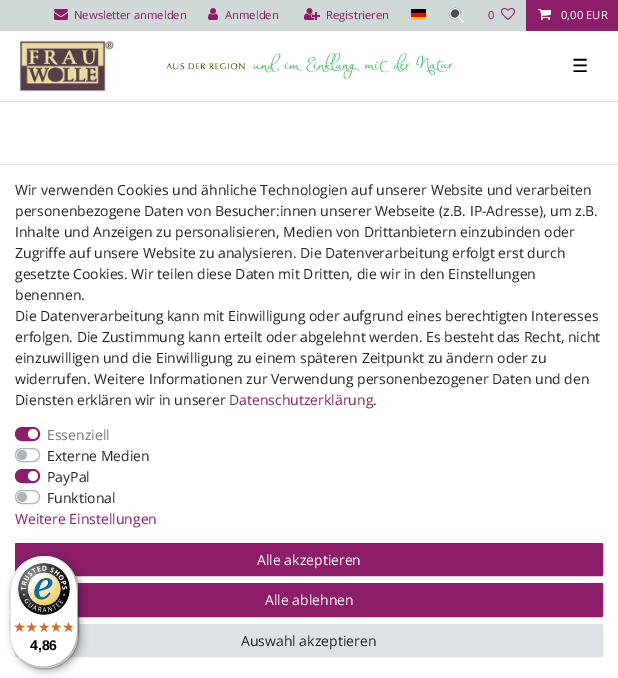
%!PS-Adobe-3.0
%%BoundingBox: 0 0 618 678
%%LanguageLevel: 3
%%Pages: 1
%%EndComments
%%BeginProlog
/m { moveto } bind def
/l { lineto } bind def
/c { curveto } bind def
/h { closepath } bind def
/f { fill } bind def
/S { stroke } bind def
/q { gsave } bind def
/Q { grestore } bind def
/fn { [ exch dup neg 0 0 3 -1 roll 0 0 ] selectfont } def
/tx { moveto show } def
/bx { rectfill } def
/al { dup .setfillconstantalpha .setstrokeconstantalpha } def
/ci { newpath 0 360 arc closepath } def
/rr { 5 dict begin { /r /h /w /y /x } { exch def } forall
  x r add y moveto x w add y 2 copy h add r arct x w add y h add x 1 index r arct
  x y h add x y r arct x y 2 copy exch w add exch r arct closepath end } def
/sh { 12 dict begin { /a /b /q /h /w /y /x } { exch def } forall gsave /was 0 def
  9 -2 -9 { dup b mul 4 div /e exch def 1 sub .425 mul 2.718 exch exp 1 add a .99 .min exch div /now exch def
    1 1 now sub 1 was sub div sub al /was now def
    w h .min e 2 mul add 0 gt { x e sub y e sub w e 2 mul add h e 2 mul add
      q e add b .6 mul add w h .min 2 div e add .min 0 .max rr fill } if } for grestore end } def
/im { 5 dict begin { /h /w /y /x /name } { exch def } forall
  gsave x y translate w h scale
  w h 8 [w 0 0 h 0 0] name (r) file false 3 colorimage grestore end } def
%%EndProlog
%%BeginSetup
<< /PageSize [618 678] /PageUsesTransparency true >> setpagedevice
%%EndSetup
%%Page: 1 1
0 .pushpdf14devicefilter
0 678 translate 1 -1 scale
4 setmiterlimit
1 setgray
0 0 618 678 bx
0.82 0.847 0.847 setrgbcolor
0 0 526 31 bx
(image0.raw) 54 9 14 11 im
/OpenSans-Regular 11.25 fn
0.545 0.114 0.412 setrgbcolor
(Newsletter anmelden) 74 19 tx
(image1.raw) 208 8 10 12 im
(Anmelden) 225 19 tx
(image2.raw) 304 8 16 12 im
(Registrieren) 326 19 tx
1 0.8 0 setrgbcolor
411 17 15 3 bx
0 setgray
411 9 15 4 bx
1 0 0 setrgbcolor
411 13 15 4 bx
1 setgray
463 22.5 m 461.5 21 453 12.5 453 12 c 453.5 11.5 l 464 22 l 464 22.5 463.5 22.5 463 22.5 c h f
0.286 0.314 0.341 setrgbcolor
451 17.5 m 446 12.5 454 4.5 459 9.5 c 464 14.5 456 22.5 451 17.5 c h f
1 setgray
451.5 17 m 447 12.5 454 5.5 458.5 10 c 463 14.5 456 21.5 451.5 17 c h S
0.545 0.114 0.412 setrgbcolor
(0) 488 19 tx
(image3.raw) 501 8 14 12 im
526 0 92 31 bx
(image4.raw) 538 9 13 11 im
1 setgray
(0,00 EUR) 561 19 tx
0.871 0.886 0.902 setrgbcolor
0 101 618 1 bx
(image5.raw) 165 51 289 29 im
(image6.raw) 18 38 98 54 im
/DejaVuSans-Regular 18 fn
0 setgray
(☰) 572 72 tx
0.871 0.886 0.902 setrgbcolor
0 164 618 1 bx
/OpenSans-Regular 14 fn
0.129 0.145 0.161 setrgbcolor
(Wir verwenden Cookies und ähnliche Technologien auf unserer Website und verarbeiten) 15 195 tx
(personenbezogene Daten von Besucher:innen unserer Webseite \(z.B. IP-Adresse\), um z.B.) 15 216 tx
(Inhalte und Anzeigen zu personalisieren, Medien von Drittanbietern einzubinden oder) 15 237 tx
(Zugriffe auf unsere Website zu analysieren. Die Datenverarbeitung erfolgt erst durch) 15 258 tx
(gesetzte Cookies. Wir teilen diese Daten mit Dritten, die wir in den Einstellungen) 15 279 tx
(benennen.) 15 300 tx
(Die Datenverarbeitung kann mit Einwilligung oder aufgrund eines berechtigten Interesses) 15 321 tx
(erfolgen. Die Zustimmung kann erteilt oder abgelehnt werden. Es besteht das Recht, nicht) 15 342 tx
(einzuwilligen und die Einwilligung zu einem späteren Zeitpunkt zu ändern oder zu) 15 363 tx
(widerrufen. Weitere Informationen zur Verwendung personenbezogener Daten und den) 15 384 tx
(Diensten erklären wir in unserer) 15 405 tx
0.545 0.114 0.412 setrgbcolor
(Datenschutzerklärung) 229 405 tx
0.129 0.145 0.161 setrgbcolor
(.) 373 405 tx
0.545 0.114 0.412 setrgbcolor
15.5 427.5 24 13 6.5 rr q f Q
S
1 setgray
33 434 5 ci f
0.463 setgray
(Essenziell) 47 440 tx
0.678 0.71 0.741 setrgbcolor
15.5 448.5 24 13 6.5 rr S
22 455 5 ci f
0.129 0.145 0.161 setrgbcolor
(Externe Medien) 47 461 tx
0.545 0.114 0.412 setrgbcolor
15.5 469.5 24 13 6.5 rr q f Q
S
1 setgray
33 476 5 ci f
0.129 0.145 0.161 setrgbcolor
(PayPal) 47 482 tx
0.678 0.71 0.741 setrgbcolor
15.5 490.5 24 13 6.5 rr S
22 497 5 ci f
0.129 0.145 0.161 setrgbcolor
(Funktional) 47 503 tx
0.545 0.114 0.412 setrgbcolor
(Weitere Einstellungen) 15 524 tx
15.5 543.5 587 32 1 rr q f Q
S
1 setgray
(Alle akzeptieren) 257 565 tx
0.545 0.114 0.412 setrgbcolor
15.5 583.5 587 33 1 rr q f Q
S
1 setgray
(Alle ablehnen) 265 605 tx
0.871 0.886 0.902 setrgbcolor
15.5 624.5 587 32 1 rr q f Q
S
0.129 0.145 0.161 setrgbcolor
(Auswahl akzeptieren) 241 646 tx
0 setgray
13 559 68 112 34 4 0.15 sh
11 557 68 112 34 1 0.15 sh
0.1 al
45 557 m 53 557 61 560 67 565 c 50 550 22 556 13 577 c 8 587 10 601 10 612 c 10 627 7 644 19 657 c 14 651 11 643 11 635 c 11 591 l 11 572 26 557 45 557 c h f
0.2 al
21 659 m 38 674 66 668 75 647 c 80 637 78 623 78 612 c 78 597 81 580 69 567 c 79 580 77 596 77 611 c 77 622 79 636 74 646 c 66 667 38 673 21 659 c h f
0.196 setgray
17 655 m 24 663 33 668 44 668 c 63 668 78 653 78 634 c 78 590 l 78 579 73 570 65 563 c 72 570 77 579 77 589 c 77 633 l 77 652 62 667 43 667 c 33 667 24 662 17 655 c h f
0.3 al
1 setgray
44 556 m 63 556 78 571 78 590 c 78 571 62 556 44 556 c h 78 634 m 78 652 62 668 44 668 c 63 668 78 653 78 634 c h 44 668 m 25 668 10 652 10 634 c 10 653 25 668 44 668 c h eofill
1 al
0 setgray
13 559 68 112 34 4 0.15 sh
11 557 68 112 34 1 0.15 sh
1 setgray
10 556 68 112 34 rr f
0.1 al
0 setgray
45 557 m 53 557 61 560 67 565 c 50 550 22 556 13 577 c 8 587 10 601 10 612 c 10 627 7 644 19 657 c 14 651 11 643 11 635 c 11 591 l 11 572 26 557 45 557 c h f
0.2 al
21 659 m 38 674 66 668 75 647 c 80 637 78 623 78 612 c 78 597 81 580 69 567 c 79 580 77 596 77 611 c 77 622 79 636 74 646 c 66 667 38 673 21 659 c h f
0.196 setgray
17 655 m 24 663 33 668 44 668 c 63 668 78 653 78 634 c 78 590 l 78 579 73 570 65 563 c 72 570 77 579 77 589 c 77 633 l 77 652 62 667 43 667 c 33 667 24 662 17 655 c h f
0.3 al
1 setgray
44 556 m 63 556 78 571 78 590 c 78 571 62 556 44 556 c h 78 634 m 78 652 62 668 44 668 c 63 668 78 653 78 634 c h 44 668 m 25 668 10 652 10 634 c 10 653 25 668 44 668 c h eofill
1 al
(image7.raw) 18 563 52 52 im
(image8.raw) 14 622 11 10 im
(image9.raw) 27 622 10 10 im
(image10.raw) 39 622 10 10 im
(image11.raw) 51 622 11 10 im
(image11.raw) 63 622 11 10 im
(image12.raw) 14 622 11 10 im
(image13.raw) 26 622 11 10 im
(image14.raw) 39 622 10 10 im
(image15.raw) 51 622 10 10 im
(image16.raw) 63 622 9 10 im
/LiberationSans-Bold 14 fn
0 setgray
(4,86) 30 650 tx
.poppdf14devicefilter showpage
%%EOF
